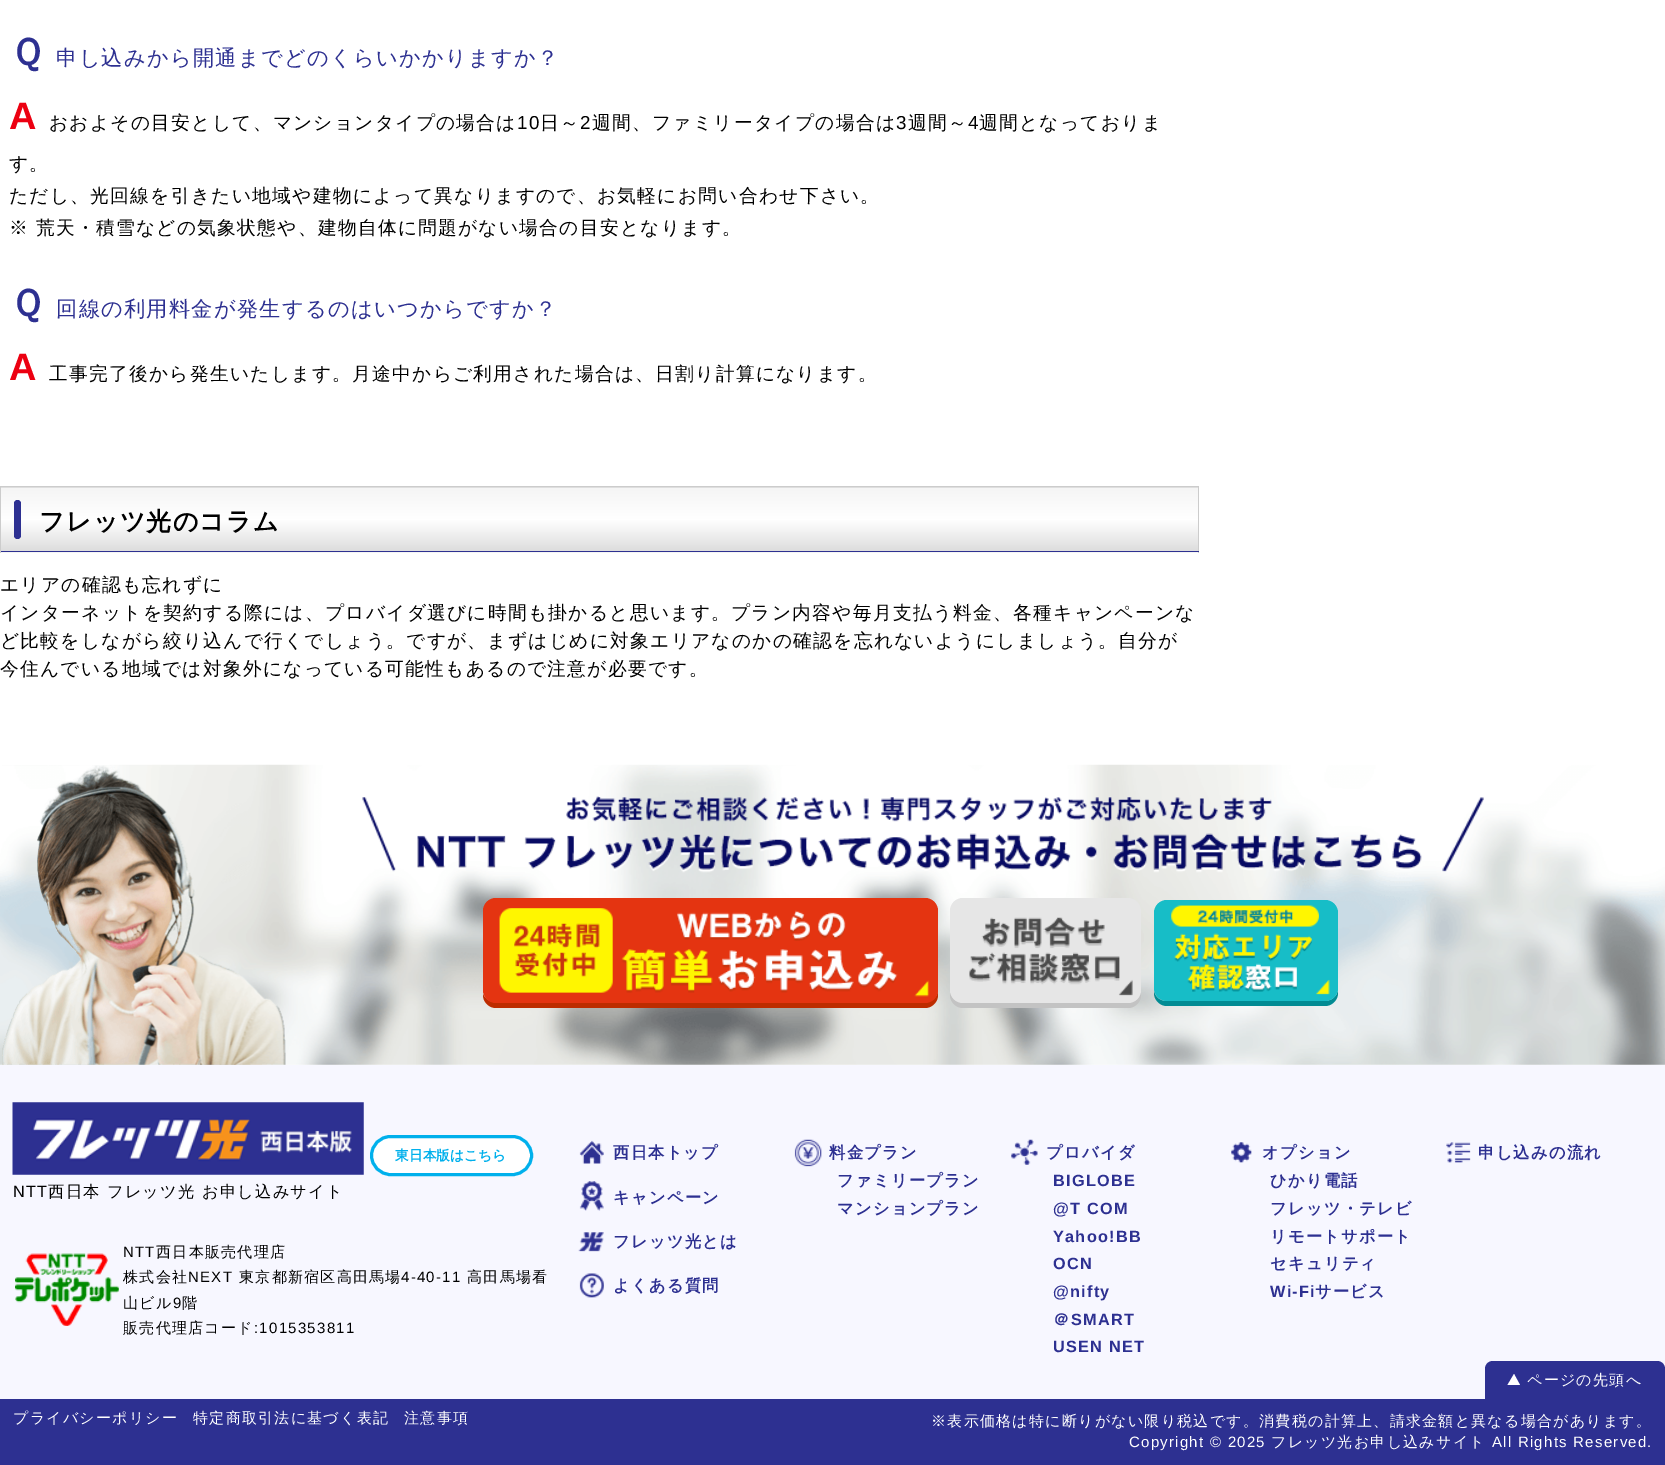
%!PS-Adobe-3.0
%%BoundingBox: 0 0 1665 1465
%%LanguageLevel: 3
%%Pages: 1
%%EndComments
%%BeginProlog
/m { moveto } bind def
/l { lineto } bind def
/c { curveto } bind def
/h { closepath } bind def
/f { fill } bind def
/S { stroke } bind def
/q { gsave } bind def
/Q { grestore } bind def
/w { setlinewidth } bind def
/fn { [ exch dup neg 0 0 3 -1 roll 0 0 ] selectfont } def
/tx { moveto show } def
/bx { rectfill } def
/rr { 5 dict begin { /r /h /w /y /x } { exch def } forall
  x r add y moveto x w add y 2 copy h add r arct x w add y h add x 1 index r arct
  x y h add x y r arct x y 2 copy exch w add exch r arct closepath end } def
/im { 5 dict begin { /h /w /y /x /name } { exch def } forall
  gsave x y translate w h scale
  w h 8 [w 0 0 h 0 0] name (r) file false 3 colorimage grestore end } def
%%EndProlog
%%BeginSetup
<< /PageSize [1665 1465] >> setpagedevice
%%EndSetup
%%Page: 1 1
0 1465 translate 1 -1 scale
4 setmiterlimit
1 setgray
0 0 1665 1465 bx
/WenQuanYiZenHei-Bold 38 fn
0.176 0.188 0.569 setrgbcolor
9 65 m 1.25 0 (Ｑ) ashow
/WenQuanYiZenHei-Medium 21.25 fn
56 65 m 1.25 0 (申し込みから開通までどのくらいかかりますか？) ashow
/LiberationSans-Bold 38 fn
0.925 0 0.067 setrgbcolor
9 129 m 1.25 0 (A) ashow
/WenQuanYiZenHei-Medium 18.75 fn
0 setgray
49 129 m 1.25 0 (おおよその目安として、マンションタイプの場合は) ashow
/LiberationSans-Regular 18.75 fn
517 129 m 1.25 0 (10) ashow
/WenQuanYiZenHei-Medium 18.75 fn
540 129 m 1.25 0 (日～) ashow
/LiberationSans-Regular 18.75 fn
580 129 m 1.25 0 (2) ashow
/WenQuanYiZenHei-Medium 18.75 fn
592 129 m 1.25 0 (週間、ファミリータイプの場合は) ashow
/LiberationSans-Regular 18.75 fn
896 129 m 1.25 0 (3) ashow
/WenQuanYiZenHei-Medium 18.75 fn
908 129 m 1.25 0 (週間～) ashow
/LiberationSans-Regular 18.75 fn
968 129 m 1.25 0 (4) ashow
/WenQuanYiZenHei-Medium 18.75 fn
979 129 m 1.25 0 (週間となっておりま) ashow
9 170 m 1.25 0 (す。) ashow
9 202 m 1.25 0 (ただし、光回線を引きたい地域や建物によって異なりますので、お気軽にお問い合わせ下さい。) ashow
9 234 m 1.25 0 (※ 荒天・積雪などの気象状態や、建物自体に問題がない場合の目安となります。) ashow
/WenQuanYiZenHei-Bold 38 fn
0.176 0.188 0.569 setrgbcolor
9 316 m 1.25 0 (Ｑ) ashow
/WenQuanYiZenHei-Medium 21.25 fn
56 316 m 1.25 0 (回線の利用料金が発生するのはいつからですか？) ashow
/LiberationSans-Bold 38 fn
0.925 0 0.067 setrgbcolor
9 380 m 1.25 0 (A) ashow
/WenQuanYiZenHei-Medium 18.75 fn
0 setgray
49 380 m 1.25 0 (工事完了後から発生いたします。月途中からご利用された場合は、日割り計算になります。) ashow
q 0 487 m 1199 487 l 1199 488 l 0 488 l h clip newpath
<< /ShadingType 2 /ColorSpace /DeviceRGB /Coords [599 488 599 424] /Extend [true true] /Function << /FunctionType 3 /Domain [0 1] /Functions [<< /FunctionType 2 /Domain [0 1] /C0 [0.867 0.867 0.867] /C1 [1 1 1] /N 1 >> << /FunctionType 2 /Domain [0 1] /C0 [1 1 1] /C1 [0.961 0.961 0.961] /N 1 >>] /Bounds [0.5] /Encode [0 1 0 1] >> >> shfill Q
q 1 488 m 1198 488 l 1198 551 l 1 551 l h clip newpath
<< /ShadingType 2 /ColorSpace /DeviceRGB /Coords [599 551 599 488] /Extend [true true] /Function << /FunctionType 3 /Domain [0 1] /Functions [<< /FunctionType 2 /Domain [0 1] /C0 [0.867 0.867 0.867] /C1 [1 1 1] /N 1 >> << /FunctionType 2 /Domain [0 1] /C0 [1 1 1] /C1 [0.961 0.961 0.961] /N 1 >>] /Bounds [0.5] /Encode [0 1 0 1] >> >> shfill Q
q 0 552 m 1199 552 l 1199 553 l 0 553 l h clip newpath
<< /ShadingType 2 /ColorSpace /DeviceRGB /Coords [599 615 599 551] /Extend [true true] /Function << /FunctionType 3 /Domain [0 1] /Functions [<< /FunctionType 2 /Domain [0 1] /C0 [0.867 0.867 0.867] /C1 [1 1 1] /N 1 >> << /FunctionType 2 /Domain [0 1] /C0 [1 1 1] /C1 [0.961 0.961 0.961] /N 1 >>] /Bounds [0.5] /Encode [0 1 0 1] >> >> shfill Q
0.8 setgray
0 486 1199 1 bx
1198 486 1 67 bx
0.176 0.188 0.569 setrgbcolor
0 551 1199 1 bx
0.8 setgray
0 486 1 67 bx
0.176 0.188 0.569 setrgbcolor
14 500 7 39 3.5 rr f
/WenQuanYiZenHei-Bold 25 fn
0 setgray
39 530 m 1.25 0 (フレッツ光のコラム) ashow
/WenQuanYiZenHei-Medium 18.75 fn
0 591 m 1.25 0 (エリアの確認も忘れずに) ashow
0 619 m 1.25 0 (インターネットを契約する際には、プロバイダ選びに時間も掛かると思います。プラン内容や毎月支払う料金、各種キャンペーンな) ashow
0 647 m 1.25 0 (ど比較をしながら絞り込んで行くでしょう。ですが、まずはじめに対象エリアなのかの確認を忘れないようにしましょう。自分が) ashow
0 675 m 1.25 0 (今住んでいる地域では対象外になっている可能性もあるので注意が必要です。) ashow
(image0.raw) 0 764 1665 301 im
(image1.raw) 2 765 284 300 im
(image2.raw) 362 796 1122 77 im
0.741 0.173 0 setrgbcolor
483 994 m 483 995 l 483 1002 489 1008 496 1008 c 925 1008 l 932 1008 938 1002 938 995 c 938 916 l 938 912 l 938 990 l 938 997 932 1002 925 1002 c 495 1002 l 489 1002 485 999 483 994 c h f
0.894 0.204 0.067 setrgbcolor
483 898 455 105 13 rr f
(image3.raw) 499 908 431 89 im
0.765 setgray
950 990 m 950 995 l 950 1002 956 1008 963 1008 c 1128 1008 l 1135 1008 1141 1002 1141 995 c 1141 992 l 1140 998 1135 1002 1129 1002 c 962 1002 l 956 1002 950 997 950 990 c h f
0.902 setgray
950 898 191 105 13 rr f
(image4.raw) 969 917 164 79 im
0.004 0.545 0.576 setrgbcolor
1154 991 m 1154 993 l 1154 1000 1160 1006 1167 1006 c 1325 1006 l 1332 1006 1338 1000 1338 993 c 1338 918 l 1338 914 l 1338 989 l 1338 996 1332 1001 1325 1001 c 1166 1001 l 1160 1001 1155 997 1154 991 c h f
0.09 0.741 0.78 setrgbcolor
1154 900 184 101 13 rr f
(image5.raw) 1171 905 159 90 im
0.969 0.969 1 setrgbcolor
0 1065 1665 334 bx
1 setgray
371.5 1136.5 160 38 19 rr q f Q
0 0.69 0.925 setrgbcolor
3 w
S
/WenQuanYiZenHei-Bold 13.75 fn
(東日本版はこちら) 395 1160 tx
(image6.raw) 12 1102 352 73 im
/LiberationSans-Regular 16.25 fn
0 setgray
13 1197 m 1.25 0 (NTT) ashow
/WenQuanYiZenHei-Medium 16.25 fn
48 1197 m 1.25 0 (西日本 フレッツ光 お申し込みサイト) ashow
(image7.raw) 15 1253 104 73 im
/LiberationSans-Regular 15 fn
123 1257 m 1.25 0 (NTT) ashow
/WenQuanYiZenHei-Medium 15 fn
156 1257 m 1.25 0 (西日本販売代理店) ashow
123 1282 m 1.25 0 (株式会社) ashow
/LiberationSans-Regular 15 fn
188 1282 m 1.25 0 (NEXT) ashow
/WenQuanYiZenHei-Medium 15 fn
239 1282 m 1.25 0 (東京都新宿区高田馬場) ashow
/LiberationSans-Regular 15 fn
401 1282 m 1.25 0 (4-40-11) ashow
/WenQuanYiZenHei-Medium 15 fn
467 1282 m 1.25 0 (高田馬場看) ashow
123 1308 m 1.25 0 (山ビル) ashow
/LiberationSans-Regular 15 fn
173 1308 m 1.25 0 (9) ashow
/WenQuanYiZenHei-Medium 15 fn
182 1308 m 1.25 0 (階) ashow
123 1333 m 1.25 0 (販売代理店コード) ashow
/LiberationSans-Regular 15 fn
254 1333 m 1.25 0 (:1015353811) ashow
(image8.raw) 579 1140 25 24 im
/WenQuanYiZenHei-Bold 16.25 fn
0.176 0.188 0.569 setrgbcolor
613 1158 m 1.25 0 (西日本トップ) ashow
(image9.raw) 579 1181 25 30 im
613 1203 m 1.25 0 (キャンペーン) ashow
(image10.raw) 578 1232 26 20 im
613 1247 m 1.25 0 (フレッツ光とは) ashow
(image11.raw) 579 1273 25 25 im
613 1291 m 1.25 0 (よくある質問) ashow
(image12.raw) 794 1139 28 28 im
829 1158 m 1.25 0 (料金プラン) ashow
837 1186 m 1.25 0 (ファミリープラン) ashow
837 1214 m 1.25 0 (マンションプラン) ashow
(image13.raw) 1011 1139 27 26 im
1046 1158 m 1.25 0 (プロバイダ) ashow
/LiberationSans-Bold 16.25 fn
1053 1186 m 1.25 0 (BIGLOBE) ashow
1053 1214 m 1.25 0 (@T COM) ashow
1053 1242 m 1.25 0 (Yahoo!BB) ashow
1053 1269 m 1.25 0 (OCN) ashow
1053 1297 m 1.25 0 (@nifty) ashow
/WenQuanYiZenHei-Bold 16.25 fn
1053 1325 m 1.25 0 (＠) ashow
/LiberationSans-Bold 16.25 fn
1071 1325 m 1.25 0 (SMART) ashow
1053 1352 m 1.25 0 (USEN NET) ashow
(image14.raw) 1231 1142 21 21 im
/WenQuanYiZenHei-Bold 16.25 fn
1262 1158 m 1.25 0 (オプション) ashow
1270 1186 m 1.25 0 (ひかり電話) ashow
1270 1214 m 1.25 0 (フレッツ・テレビ) ashow
1270 1242 m 1.25 0 (リモートサポート) ashow
1270 1269 m 1.25 0 (セキュリティ) ashow
/LiberationSans-Bold 16.25 fn
1270 1297 m 1.25 0 (Wi-Fi) ashow
/WenQuanYiZenHei-Bold 16.25 fn
1315 1297 m 1.25 0 (サービス) ashow
(image15.raw) 1446 1142 25 21 im
1478 1158 m 1.25 0 (申し込みの流れ) ashow
0 1399 1665 66 bx
1493 1361 m 1657 1361 l 1661.5 1361 1665 1364.5 1665 1369 c 1665 1399 l 1485 1399 l 1485 1369 l 1485 1364.5 1488.5 1361 1493 1361 c h f
1 setgray
1520 1385 m 1507.5 1385 l 1514 1374 l h f
/WenQuanYiZenHei-Medium 15 fn
1527 1385 m 1.25 0 (ページの先頭へ) ashow
13 1423 m 1.25 0 (プライバシーポリシー) ashow
193 1423 m 1.25 0 (特定商取引法に基づく表記) ashow
404 1423 m 1.25 0 (注意事項) ashow
931 1426 m 1.25 0 (※表示価格は特に断りがない限り税込です。消費税の計算上、請求金額と異なる場合があります。) ashow
/LiberationSans-Regular 15 fn
1129 1447 m 1.25 0 (Copyright © 2025) ashow
/WenQuanYiZenHei-Medium 15 fn
1271 1447 m 1.25 0 (フレッツ光お申し込みサイト) ashow
/LiberationSans-Regular 15 fn
1492 1447 m 1.25 0 (All Rights Reserved.) ashow
showpage
%%EOF
